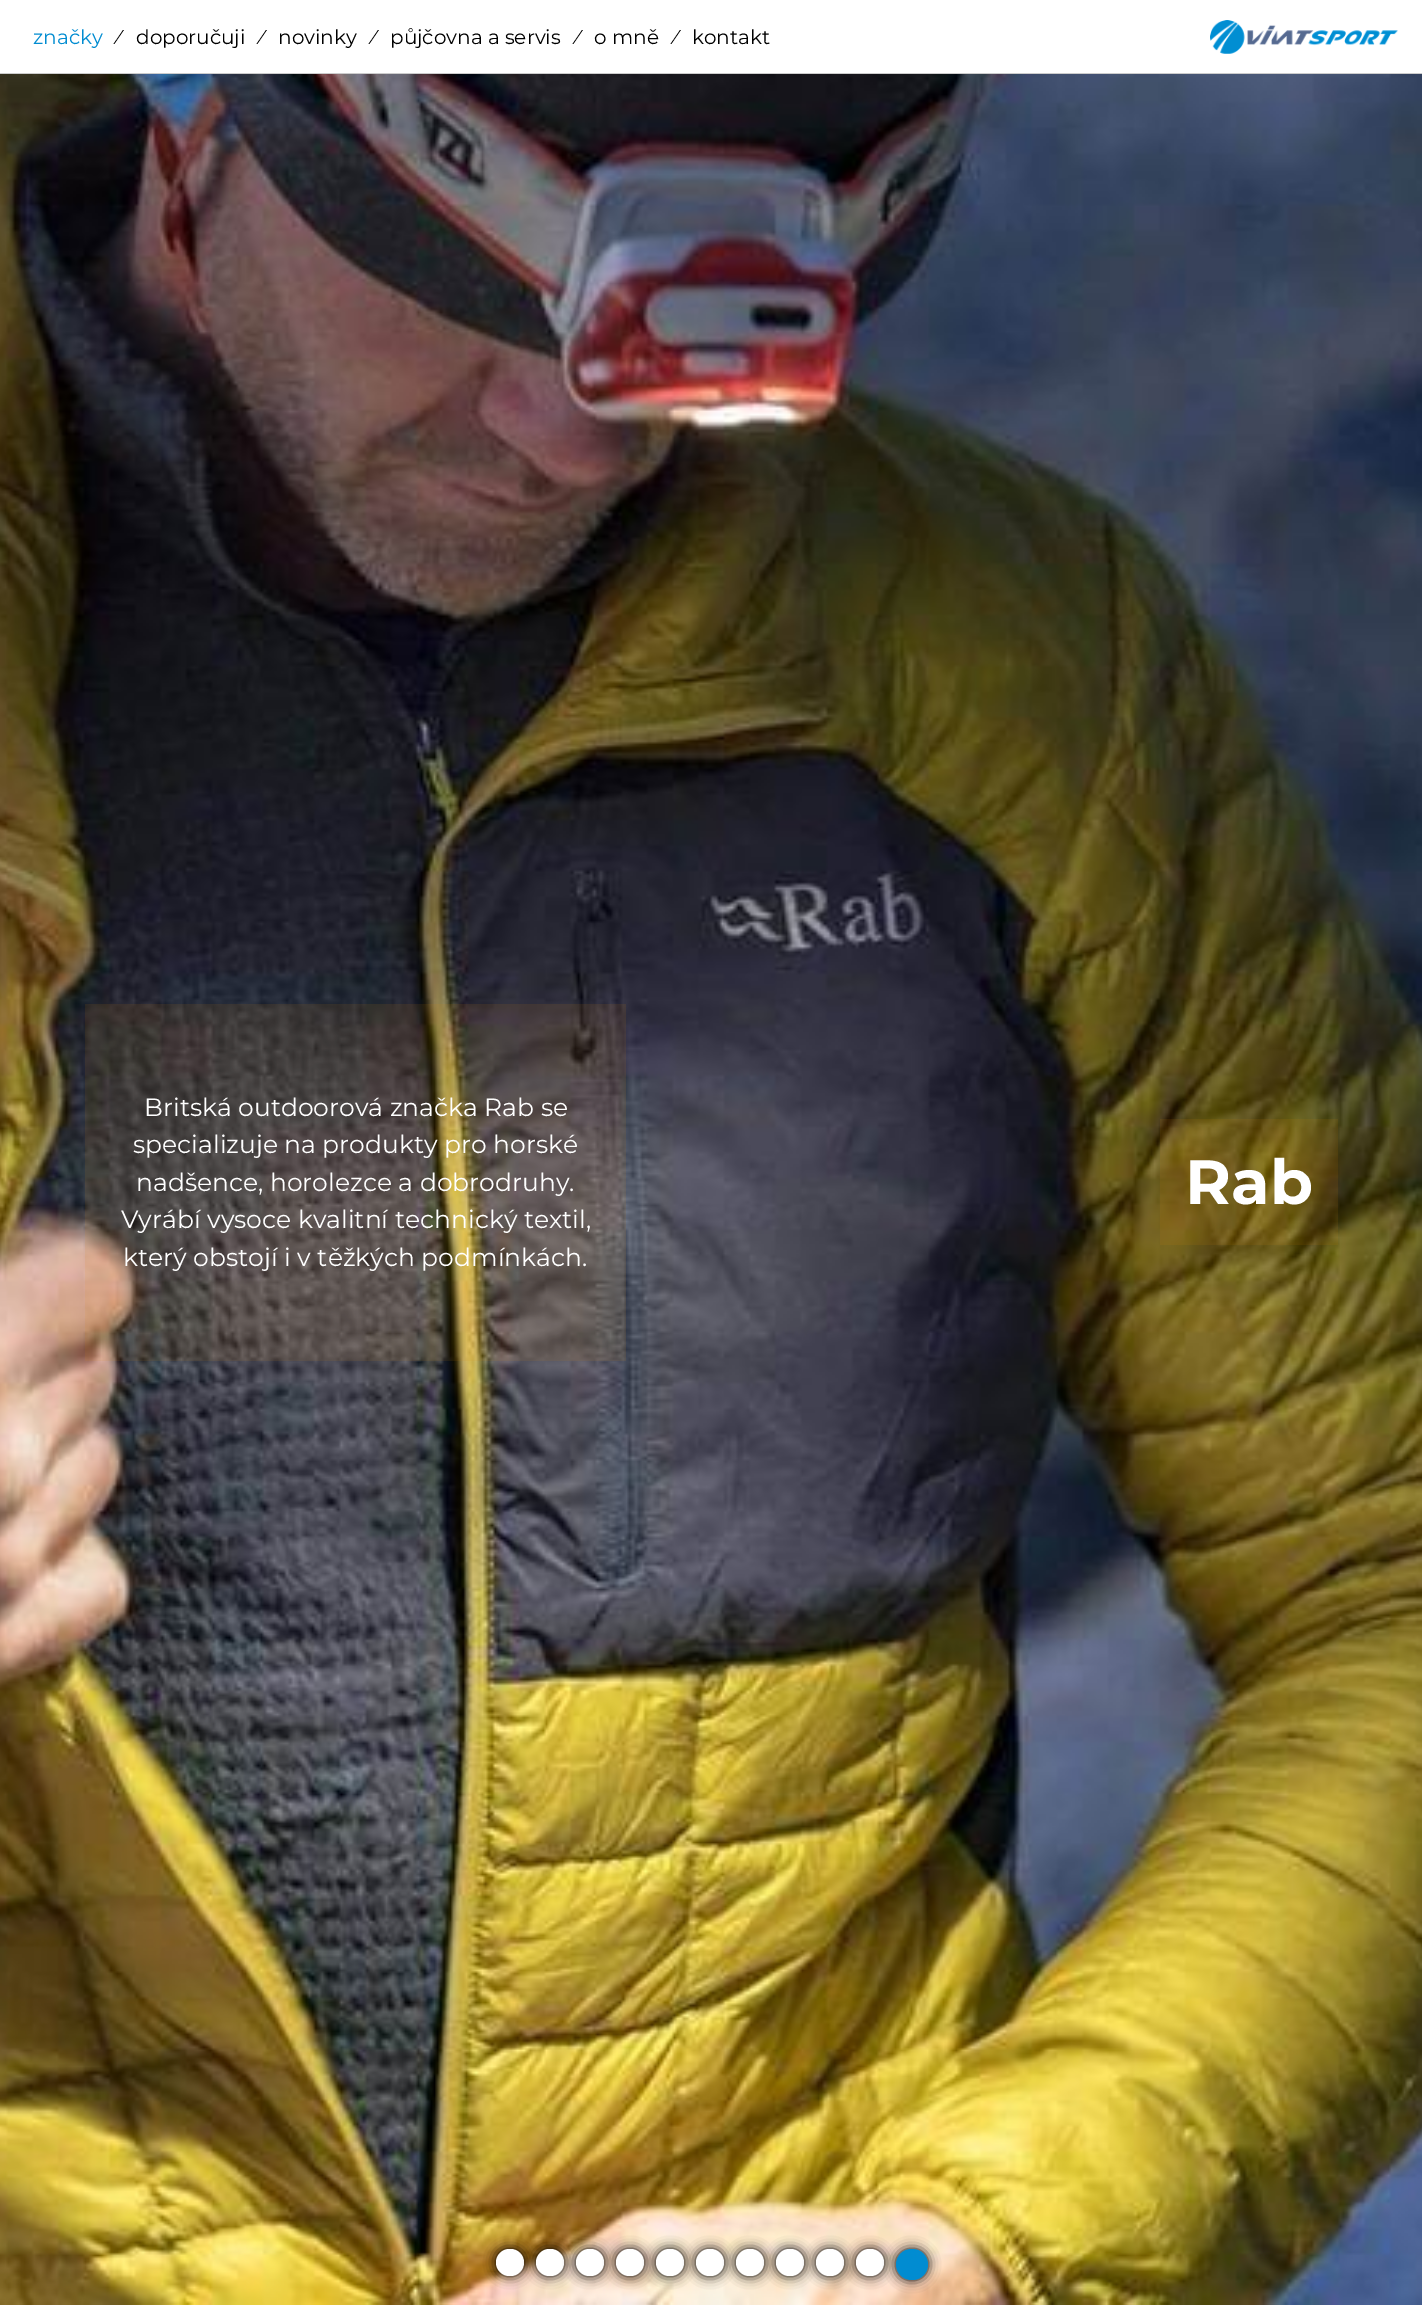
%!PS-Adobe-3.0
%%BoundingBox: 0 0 1422 2305
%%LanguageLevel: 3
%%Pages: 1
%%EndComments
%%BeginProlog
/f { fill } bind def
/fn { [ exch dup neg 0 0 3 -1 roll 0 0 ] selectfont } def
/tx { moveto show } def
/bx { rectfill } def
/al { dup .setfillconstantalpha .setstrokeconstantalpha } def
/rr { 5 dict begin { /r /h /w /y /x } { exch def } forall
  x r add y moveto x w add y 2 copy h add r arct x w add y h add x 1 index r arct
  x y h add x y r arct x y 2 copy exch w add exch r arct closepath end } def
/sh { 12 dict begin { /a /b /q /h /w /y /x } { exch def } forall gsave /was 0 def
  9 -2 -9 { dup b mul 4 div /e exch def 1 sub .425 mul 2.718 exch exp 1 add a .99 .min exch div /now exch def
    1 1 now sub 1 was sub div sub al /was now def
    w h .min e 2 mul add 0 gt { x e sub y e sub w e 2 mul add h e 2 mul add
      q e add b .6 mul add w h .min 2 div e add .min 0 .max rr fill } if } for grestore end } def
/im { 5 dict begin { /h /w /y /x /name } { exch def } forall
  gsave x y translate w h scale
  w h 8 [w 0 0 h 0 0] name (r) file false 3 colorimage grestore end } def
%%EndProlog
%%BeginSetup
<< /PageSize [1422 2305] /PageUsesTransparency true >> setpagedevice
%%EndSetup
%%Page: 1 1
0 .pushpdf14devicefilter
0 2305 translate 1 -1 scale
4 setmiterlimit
1 setgray
0 0 1422 2305 bx
(image0.raw) 0 74 1422 2231 im
0.8 setgray
0 73 1422 1 bx
/Montserrat-Regular 20 fn
0.004 0.549 0.82 setrgbcolor
(značky) 33 44 tx
0 setgray
(⁄) 117 44 tx
(doporučuji) 136 44 tx
(⁄) 260 44 tx
(novinky) 278 44 tx
(⁄) 372 44 tx
(půjčovna a servis) 390 44 tx
(⁄) 576 44 tx
(o mně) 594 44 tx
(⁄) 674 44 tx
(kontakt) 692 44 tx
(image1.raw) 1210 20 188 34 im
0.1 al
0.867 0.522 0 setrgbcolor
85 1004 541 357 bx
/Montserrat-Regular 25 fn
1 al
1 setgray
(Britská outdoorová značka Rab se) 144 1116 tx
(specializuje na produkty pro horské) 133 1153 tx
(nadšence, horolezce a dobrodruhy.) 136 1191 tx
(Vyrábí vysoce kvalitní technický textil,) 121 1228 tx
(který obstojí i v těžkých podmínkách.) 123 1266 tx
0.1 al
0.867 0.522 0 setrgbcolor
1160 1119 178 126 bx
/Montserrat-Bold 62.5 fn
1 al
1 setgray
(Rab) 1185 1204 tx
0 setgray
496 2249 28 27 13.5 6 1 sh
1 setgray
496 2249 28 27 13.5 rr f
0 setgray
536 2249 28 27 13.5 6 1 sh
1 setgray
536 2249 28 27 13.5 rr f
0 setgray
576 2249 28 27 13.5 6 1 sh
1 setgray
576 2249 28 27 13.5 rr f
0 setgray
616 2249 28 27 13.5 6 1 sh
1 setgray
616 2249 28 27 13.5 rr f
0 setgray
656 2249 28 27 13.5 6 1 sh
1 setgray
656 2249 28 27 13.5 rr f
0 setgray
696 2249 28 27 13.5 6 1 sh
1 setgray
696 2249 28 27 13.5 rr f
0 setgray
736 2249 28 27 13.5 6 1 sh
1 setgray
736 2249 28 27 13.5 rr f
0 setgray
776 2249 28 27 13.5 6 1 sh
1 setgray
776 2249 28 27 13.5 rr f
0 setgray
816 2249 28 27 13.5 6 1 sh
1 setgray
816 2249 28 27 13.5 rr f
0 setgray
856 2249 28 27 13.5 6 1 sh
1 setgray
856 2249 28 27 13.5 rr f
0 setgray
896 2249 32 31 15.5 6 1 sh
0.004 0.549 0.82 setrgbcolor
896 2249 32 31 15.5 rr f
.poppdf14devicefilter showpage
%%EOF
